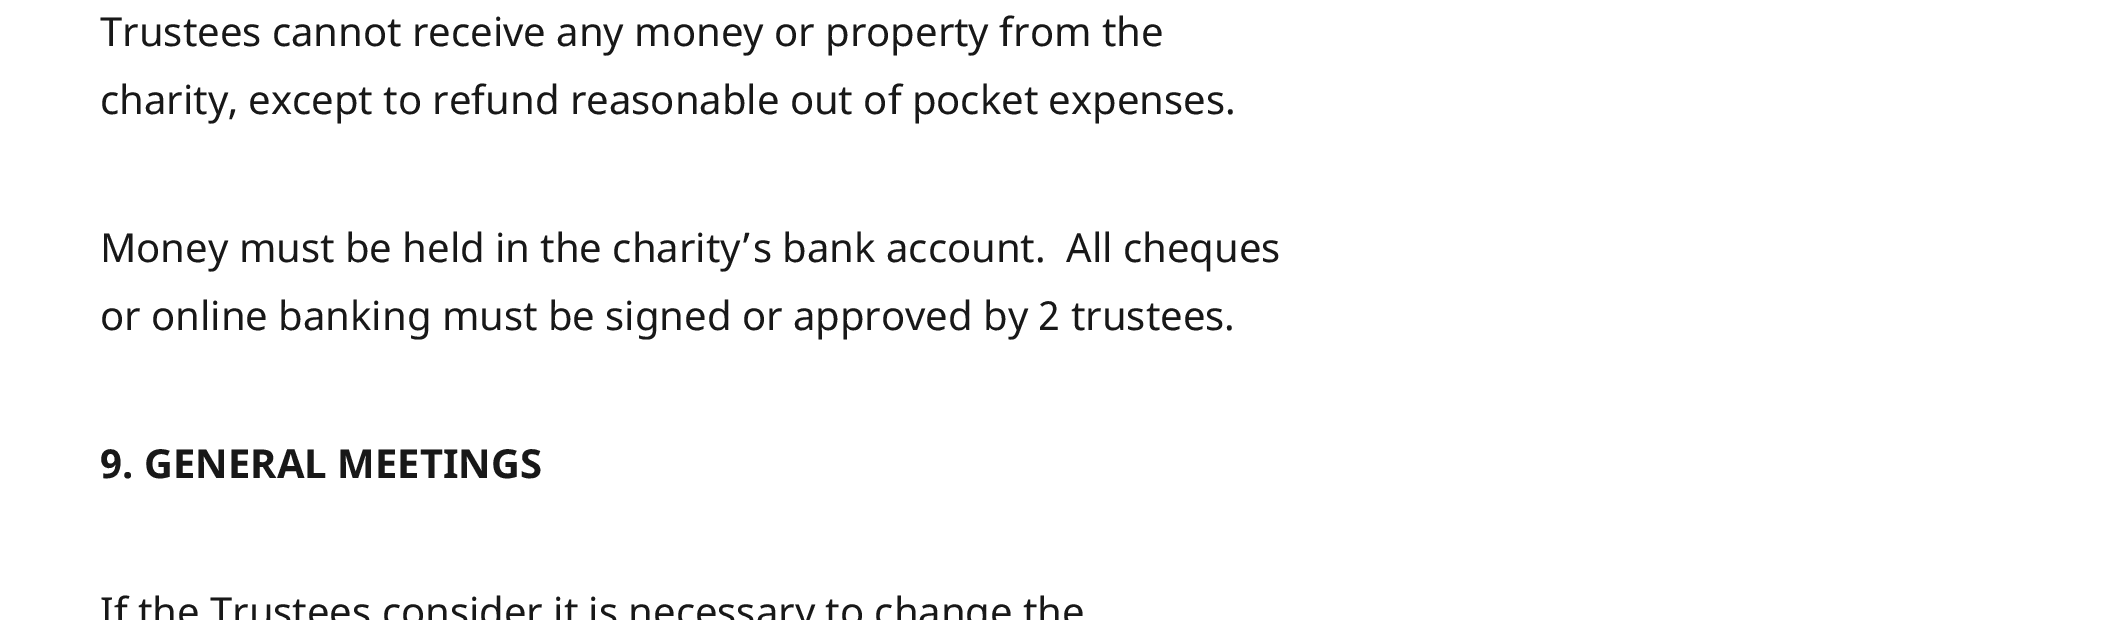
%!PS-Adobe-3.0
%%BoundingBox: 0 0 2109 620
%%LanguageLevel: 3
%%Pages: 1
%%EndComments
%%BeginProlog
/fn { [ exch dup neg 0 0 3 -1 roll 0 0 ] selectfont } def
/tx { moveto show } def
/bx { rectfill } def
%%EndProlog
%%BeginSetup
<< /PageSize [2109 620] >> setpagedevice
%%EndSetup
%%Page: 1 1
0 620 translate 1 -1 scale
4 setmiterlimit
1 setgray
0 0 2109 620 bx
/NotoSans-Regular 40 fn
0.094 setgray
(Trustees cannot receive any money or property from the) 100 46 tx
(charity, except to refund reasonable out of pocket expenses.) 100 114 tx
(Money must be held in the charity’s bank account.  All cheques) 100 262 tx
(or online banking must be signed or approved by 2 trustees.) 100 330 tx
/NotoSans-Bold 40 fn
(9. GENERAL MEETINGS) 100 478 tx
/NotoSans-Regular 40 fn
(If the Trustees consider it is necessary to change the) 100 626 tx
showpage
%%EOF
